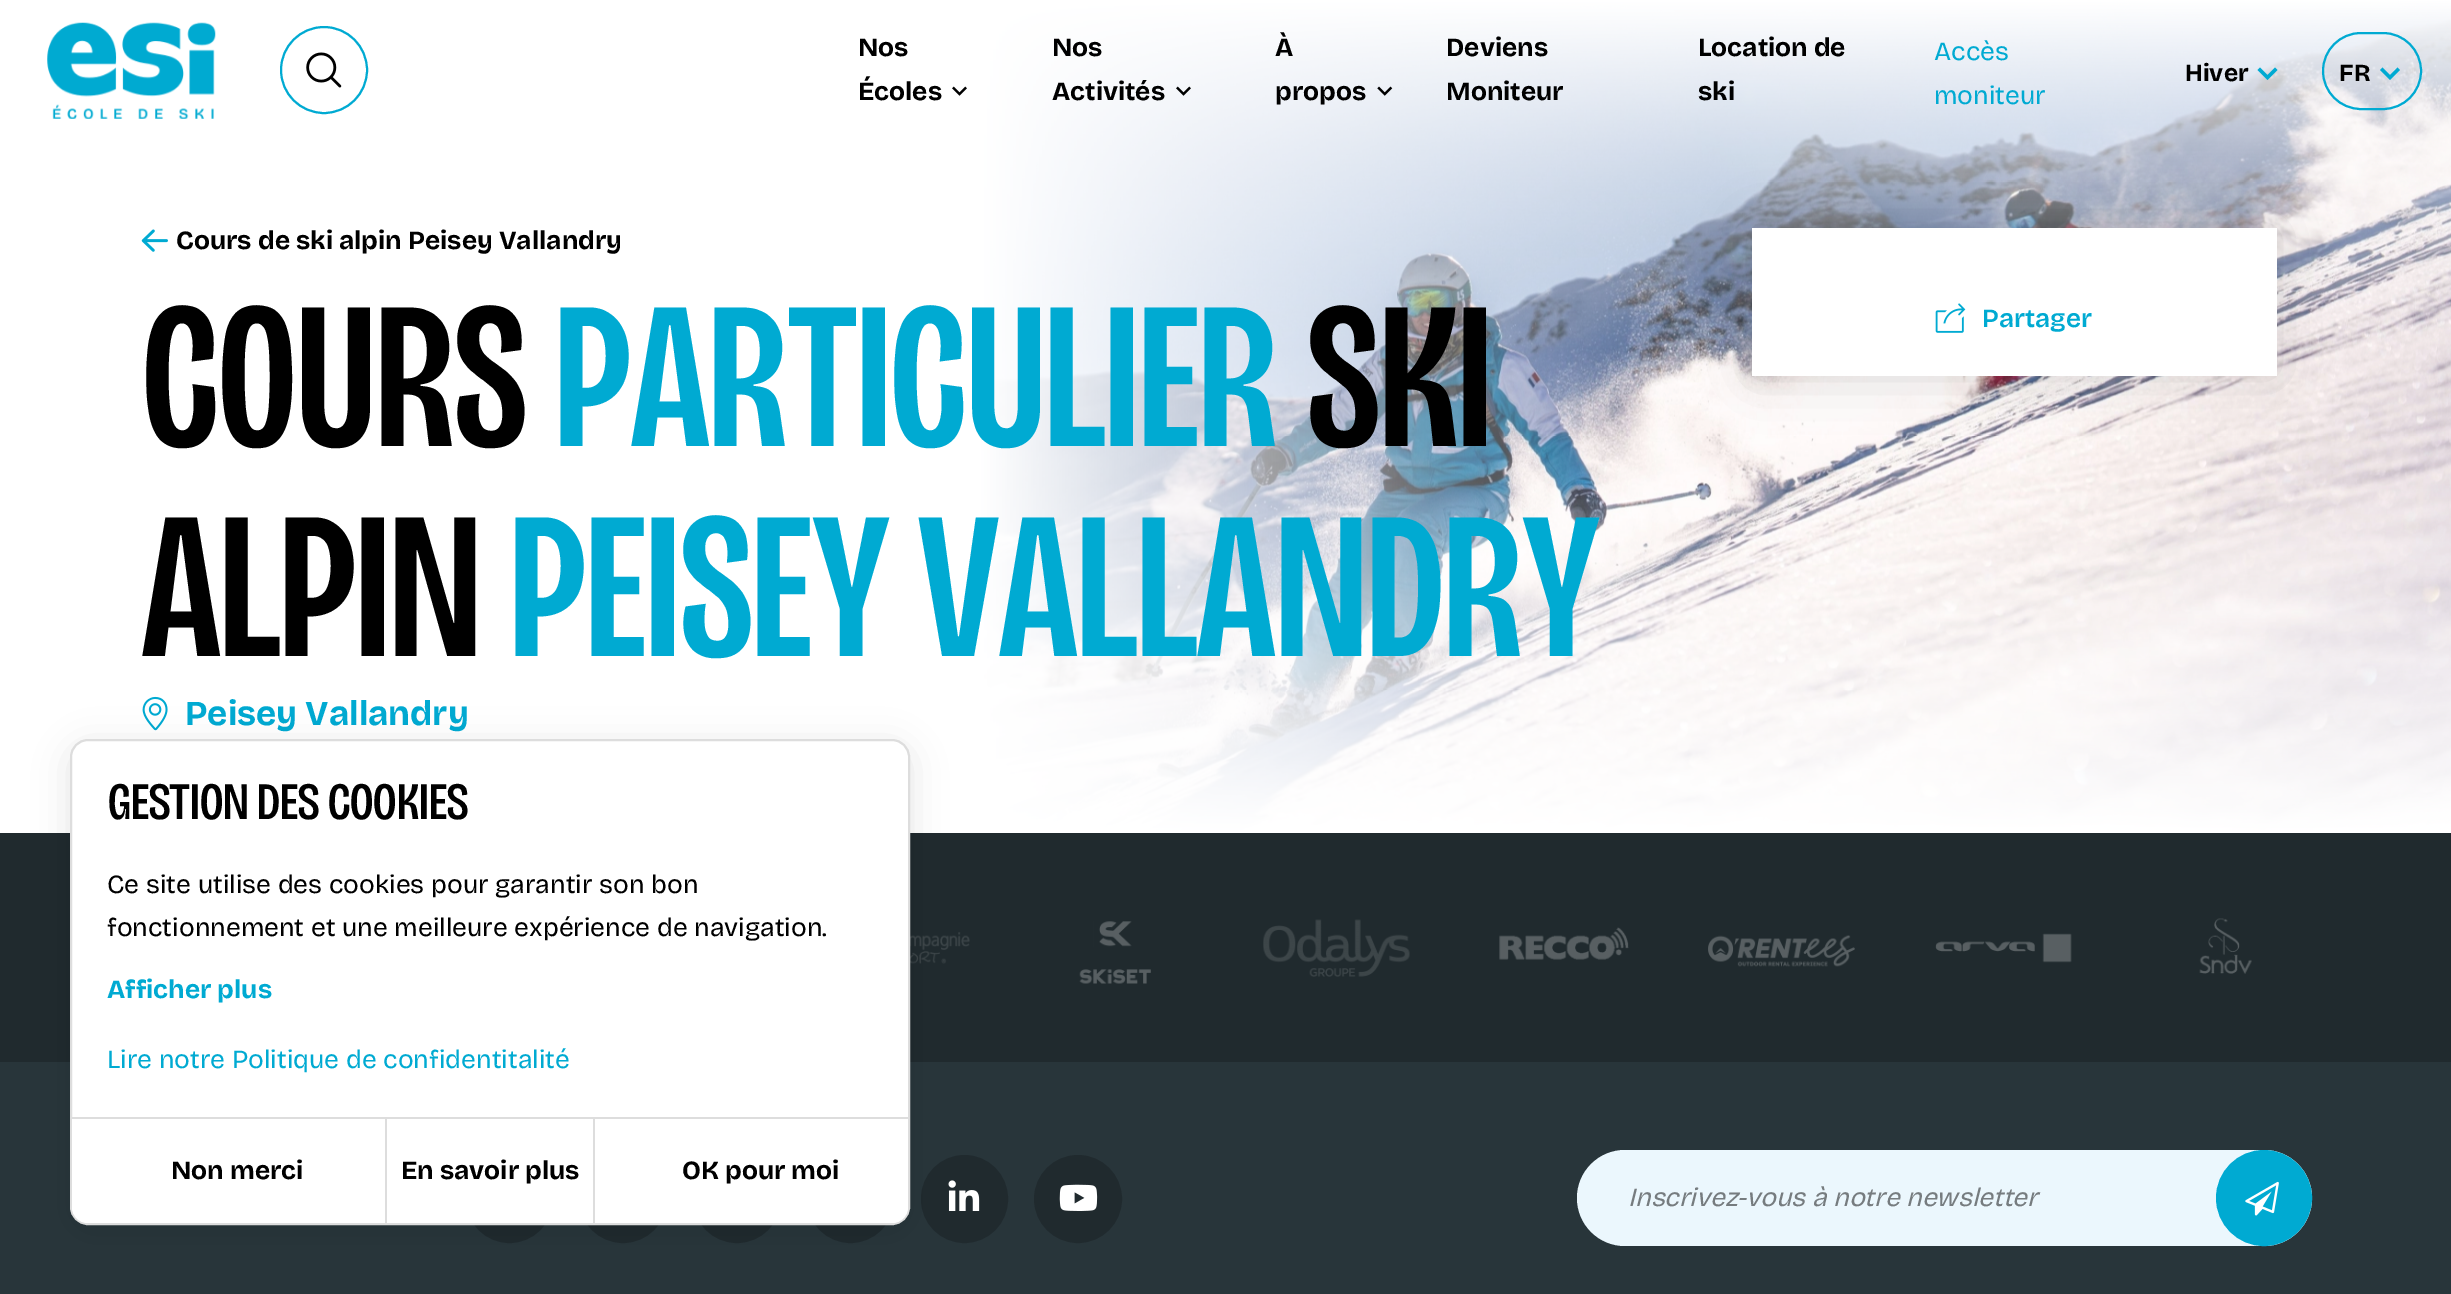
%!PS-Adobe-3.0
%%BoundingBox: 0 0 2451 1294
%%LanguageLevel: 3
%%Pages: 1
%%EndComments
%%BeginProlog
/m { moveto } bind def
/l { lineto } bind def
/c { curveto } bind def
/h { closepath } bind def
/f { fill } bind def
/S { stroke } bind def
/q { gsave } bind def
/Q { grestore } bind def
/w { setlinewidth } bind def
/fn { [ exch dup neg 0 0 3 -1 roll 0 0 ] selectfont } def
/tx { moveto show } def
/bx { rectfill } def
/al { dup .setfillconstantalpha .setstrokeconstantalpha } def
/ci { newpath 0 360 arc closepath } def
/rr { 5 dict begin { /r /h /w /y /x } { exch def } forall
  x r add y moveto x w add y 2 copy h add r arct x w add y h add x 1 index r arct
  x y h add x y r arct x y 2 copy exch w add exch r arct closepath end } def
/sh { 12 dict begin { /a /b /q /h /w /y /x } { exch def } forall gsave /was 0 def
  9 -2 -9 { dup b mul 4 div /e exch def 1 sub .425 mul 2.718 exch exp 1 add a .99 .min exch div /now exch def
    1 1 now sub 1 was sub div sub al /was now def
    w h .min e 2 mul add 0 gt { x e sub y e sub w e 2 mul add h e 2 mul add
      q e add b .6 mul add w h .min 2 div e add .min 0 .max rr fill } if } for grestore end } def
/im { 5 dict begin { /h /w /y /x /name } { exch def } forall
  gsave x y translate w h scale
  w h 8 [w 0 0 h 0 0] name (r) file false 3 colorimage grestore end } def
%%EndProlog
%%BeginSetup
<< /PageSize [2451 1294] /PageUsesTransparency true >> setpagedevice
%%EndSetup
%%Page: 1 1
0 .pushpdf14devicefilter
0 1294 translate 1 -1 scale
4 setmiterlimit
1 setgray
0 0 2451 1294 bx
(image0.raw) 980 0 1471 833 im
(image1.raw) 47 22 169 97 im
0 0.667 0.824 setrgbcolor
2 w
324 70 43 ci S
(image2.raw) 306 52 36 36 im
/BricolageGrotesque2-Bold 26.25 fn
0 setgray
(Nos) 858 56 tx
(Écoles) 858 100 tx
(image3.raw) 952 86 15 10 im
(Nos) 1052 56 tx
(Activités) 1052 100 tx
(image4.raw) 1176 86 15 10 im
(À) 1275 56 tx
(propos) 1275 100 tx
(image5.raw) 1377 86 16 10 im
(Deviens) 1446 56 tx
(Moniteur) 1446 100 tx
(Location de) 1698 56 tx
(ski) 1698 100 tx
/BricolageGrotesque-Regular 26.25 fn
0 0.667 0.824 setrgbcolor
(Accès) 1934 60 tx
(moniteur) 1934 104 tx
/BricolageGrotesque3-Bold 24.5 fn
0 setgray
(Hiver) 2185 81 tx
0 0.667 0.824 setrgbcolor
2267.5 80 m 2277.5 70 l 2275 67.5 l 2267.5 75 l 2260 67.5 l 2257.5 70 l h f
2323 33 98 76 38 rr S
0 setgray
(FR) 2339 81 tx
0 0.667 0.824 setrgbcolor
2390 80 m 2400 70 l 2397.5 67.5 l 2390 75 l 2382.5 67.5 l 2380 70 l h f
(image6.raw) 141 229 27 23 im
/BricolageGrotesque2-Bold 26.25 fn
0 setgray
(Cours de ski alpin Peisey Vallandry) 176 249 tx
/BricolageGrotesque-Medium 210 fn
141 446 m -1.75 0 (COURS) ashow
0 0.667 0.824 setrgbcolor
554 446 m -1.75 0 (PARTICULIER) ashow
0 setgray
1306 446 m -1.75 0 (SKI) ashow
141 656 m -1.75 0 (ALPIN) ashow
0 0.667 0.824 setrgbcolor
509 656 m -1.75 0 (PEISEY VALLANDRY) ashow
(image7.raw) 142 696 26 35 im
/BricolageGrotesque-Bold 35 fn
(Peisey Vallandry) 185 725 tx
0 setgray
1752 228 525 148 0 26 0.15 sh
1 setgray
1752 228 525 148 bx
(image8.raw) 1935 303 31 30 im
/BricolageGrotesque-SemiBold 26.25 fn
0 0.667 0.824 setrgbcolor
(Partager) 1982 327 tx
0.157 0.208 0.227 setrgbcolor
0 1062 2451 232 bx
0.125 0.165 0.18 setrgbcolor
0 833 2451 229 bx
(image9.raw) 910 932 60 32 im
467 1156 85 86 42.5 rr q f Q
S
623 1199 43 ci q f Q
S
737 1199 43 ci q f Q
S
808 1156 85 86 42.5 rr q f Q
S
922 1156 85 86 42.5 rr q f Q
S
(image16.raw) 948 1180 32 31 im
0 setgray
70 746 840 486 18 17.5 0.1 sh
1 setgray
71 740 838 484 17 rr q f Q
0.867 setgray
S
/BricolageGrotesque2-Medium 52.5 fn
0 setgray
107 819 m -1.75 0 (GESTION DES COOKIES) ashow
/BricolageGrotesque-Regular 26.25 fn
(Ce site utilise des cookies pour garantir son bon) 107 893 tx
(fonctionnement et une meilleure expérience de navigation.) 107 936 tx
/BricolageGrotesque2-Bold 26.25 fn
0 0.667 0.824 setrgbcolor
(Afficher plus) 107 998 tx
/BricolageGrotesque-Regular 26.25 fn
(Lire notre Politique de confidentitalité) 107 1068 tx
1 setgray
72 1117 m 908 1117 l 908 1207 l 908 1216 901 1223 892 1223 c 88 1223 l 79 1223 72 1216 72 1207 c h f
0.867 setgray
72 1117 836 2 bx
/BricolageGrotesque2-Bold 26.25 fn
0 setgray
(Non merci) 171 1179 tx
0.867 setgray
593 1118 2 105 bx
385 1118 2 105 bx
0 setgray
(En savoir plus) 401 1179 tx
(OK pour moi) 682 1179 tx
(image10.raw) 1079 921 72 63 im
(image11.raw) 1263 919 147 58 im
(image12.raw) 1499 927 130 33 im
(image13.raw) 1708 935 147 32 im
(image14.raw) 1935 933 137 30 im
(image15.raw) 2199 918 53 56 im
0.125 0.165 0.18 setrgbcolor
1078 1199 43 ci q f Q
S
(image17.raw) 1059 1184 39 27 im
0.922 0.969 0.992 setrgbcolor
1577 1150 735 96 48 rr f
/BricolageGrotesque-Italic 26.25 fn
0.463 0.486 0.498 setrgbcolor
(Inscrivez-vous à notre newsletter) 1628 1206 tx
0 0.667 0.824 setrgbcolor
2264 1198 47 ci q f Q
S
(image18.raw) 2245 1181 34 35 im
.poppdf14devicefilter showpage
%%EOF
